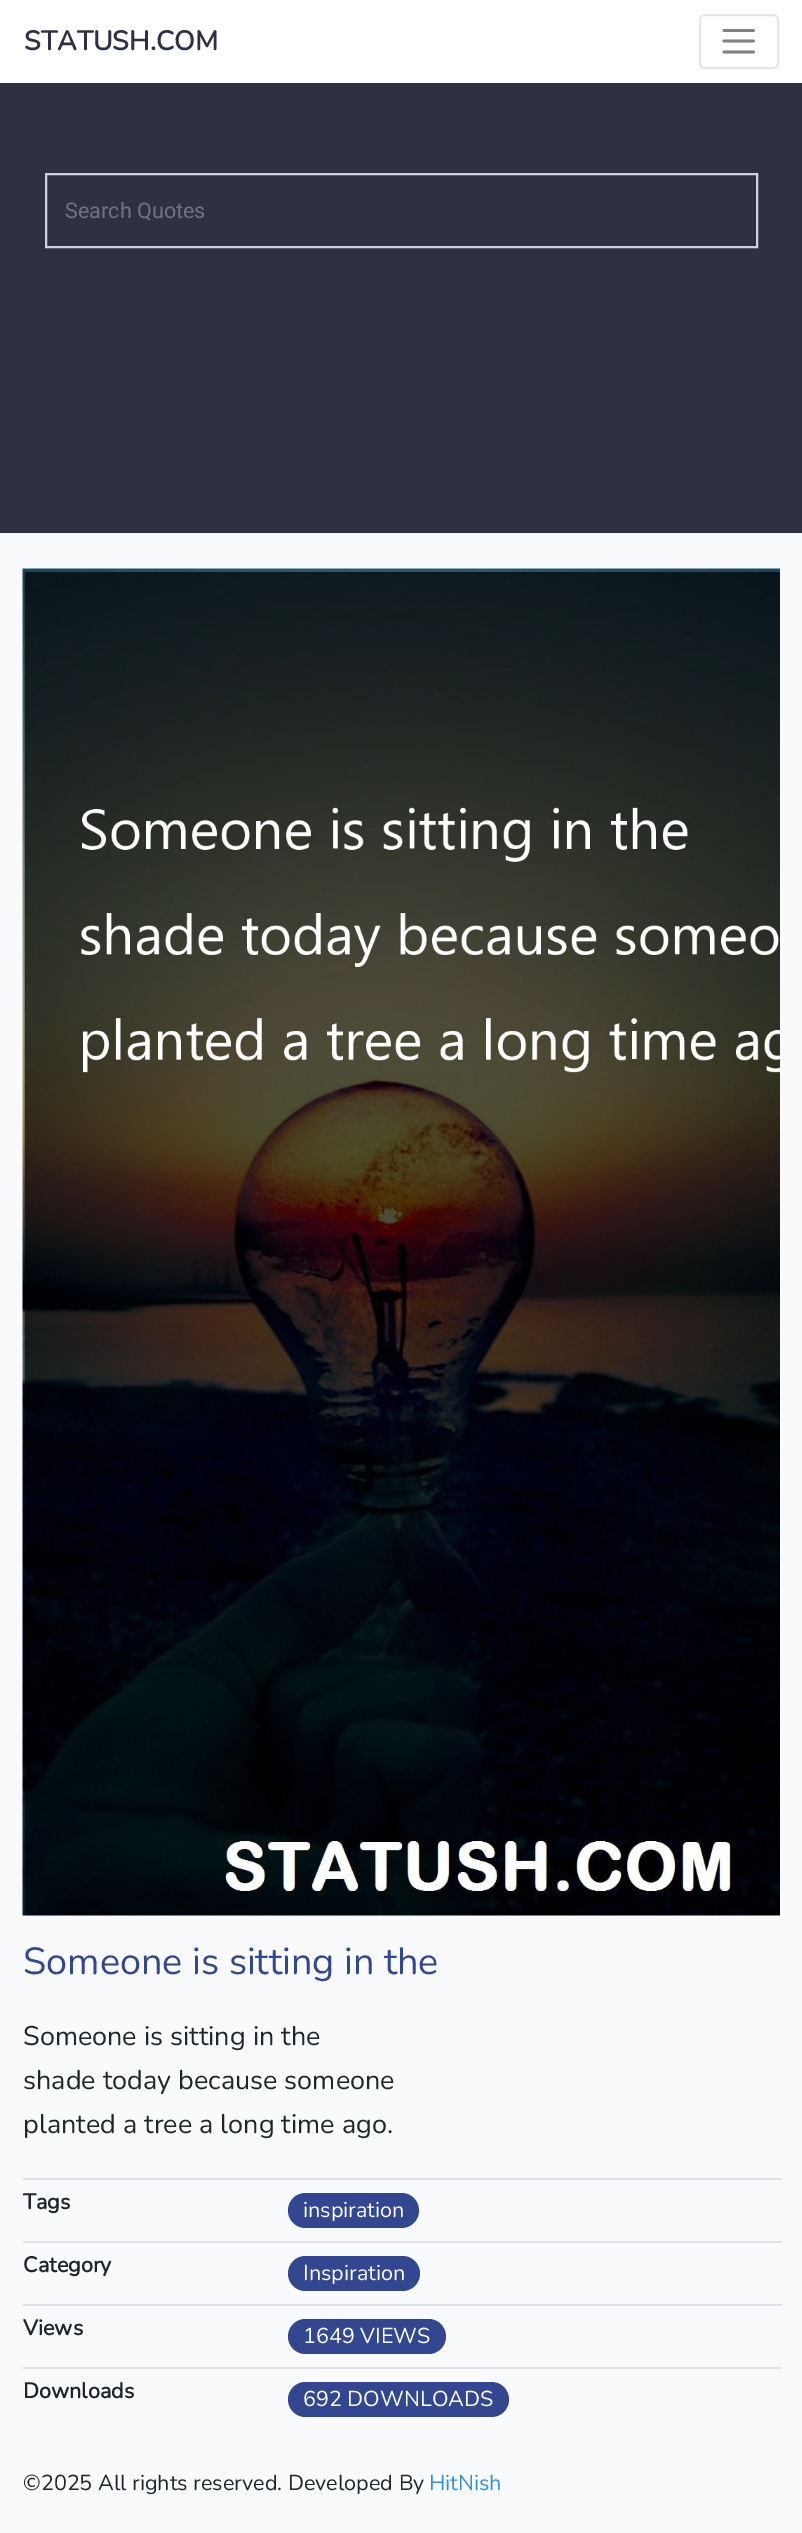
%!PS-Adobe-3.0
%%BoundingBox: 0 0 802 2533
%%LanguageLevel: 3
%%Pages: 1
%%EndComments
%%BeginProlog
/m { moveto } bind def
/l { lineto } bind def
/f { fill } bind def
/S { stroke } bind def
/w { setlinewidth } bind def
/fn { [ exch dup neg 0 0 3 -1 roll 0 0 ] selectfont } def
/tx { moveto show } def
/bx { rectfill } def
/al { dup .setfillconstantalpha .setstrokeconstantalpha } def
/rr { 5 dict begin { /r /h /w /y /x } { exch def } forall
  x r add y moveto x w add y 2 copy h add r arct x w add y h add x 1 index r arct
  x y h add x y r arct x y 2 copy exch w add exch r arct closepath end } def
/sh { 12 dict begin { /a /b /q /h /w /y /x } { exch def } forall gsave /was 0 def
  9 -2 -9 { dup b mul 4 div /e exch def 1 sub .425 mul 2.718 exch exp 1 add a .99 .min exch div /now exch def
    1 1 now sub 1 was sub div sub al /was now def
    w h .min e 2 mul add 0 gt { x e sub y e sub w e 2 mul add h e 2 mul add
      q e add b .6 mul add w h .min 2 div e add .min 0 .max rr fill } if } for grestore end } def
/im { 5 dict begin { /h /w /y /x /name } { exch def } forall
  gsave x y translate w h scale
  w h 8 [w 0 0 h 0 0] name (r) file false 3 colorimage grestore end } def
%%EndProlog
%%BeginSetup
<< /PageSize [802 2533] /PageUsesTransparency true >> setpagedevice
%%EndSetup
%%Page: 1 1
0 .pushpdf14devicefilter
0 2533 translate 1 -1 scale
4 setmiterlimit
0.973 0.98 0.988 setrgbcolor
0 0 802 2533 bx
0.18 0.192 0.259 setrgbcolor
0 83 802 450 bx
0 setgray
0 3 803 83 0 3 0.07 sh
1 setgray
0 0 802 83 bx
/Nunito-Bold 27 fn
0.18 0.192 0.259 setrgbcolor
(STATUSH.COM) 24 50 tx
0.902 setgray
2 w
700 15 78 53 5 rr S
0.502 setgray
2.7 w
1 setlinecap
724 30.5 m 753.5 30.5 l 724 41 m 753.5 41 l 724 52 m 753.5 52 l S
0.808 0.831 0.855 setrgbcolor
2 w
0 setlinecap
46 174 711 73 rectstroke
/Roboto-Regular 21.6 fn
0.424 0.459 0.49 setrgbcolor
(Search Quotes) 65 218 tx
(image0.raw) 22 568 758 1348 im
/Nunito-ExtraLight 37.75 fn
0.2 0.278 0.565 setrgbcolor
(Someone is sitting in the) 23 1974 tx
/Nunito-ExtraLight 27 fn
0.129 0.145 0.161 setrgbcolor
(Someone is sitting in the) 23 2045 tx
(shade today because someone) 23 2089 tx
(planted a tree a long time ago.) 23 2133 tx
/Nunito-Bold 21.6 fn
(Tags) 23 2209 tx
0.871 0.886 0.902 setrgbcolor
23 2178 759 2 bx
0.2 0.278 0.565 setrgbcolor
288 2193 131 35 17.5 rr f
/Nunito-ExtraLight 21.6 fn
1 setgray
(inspiration) 303 2217 tx
/Nunito-Bold 21.6 fn
0.129 0.145 0.161 setrgbcolor
(Category) 23 2272 tx
0.871 0.886 0.902 setrgbcolor
23 2241 759 2 bx
0.2 0.278 0.565 setrgbcolor
288 2256 132 35 17.5 rr f
/Nunito-ExtraLight 21.6 fn
1 setgray
(Inspiration) 303 2280 tx
/Nunito-Bold 21.6 fn
0.129 0.145 0.161 setrgbcolor
(Views) 23 2335 tx
0.871 0.886 0.902 setrgbcolor
23 2304 759 2 bx
0.2 0.278 0.565 setrgbcolor
288 2319 158 35 17.5 rr f
/Nunito-ExtraLight 21.6 fn
1 setgray
(1649 VIEWS) 303 2343 tx
/Nunito-Bold 21.6 fn
0.129 0.145 0.161 setrgbcolor
(Downloads) 23 2398 tx
0.871 0.886 0.902 setrgbcolor
23 2367 759 2 bx
0.2 0.278 0.565 setrgbcolor
288 2382 221 35 17.5 rr f
/Nunito-ExtraLight 21.6 fn
1 setgray
(692 DOWNLOADS) 303 2406 tx
0.129 0.145 0.161 setrgbcolor
(©2025 All rights reserved. Developed By) 23 2490 tx
0.204 0.565 0.863 setrgbcolor
(HitNish) 429 2490 tx
.poppdf14devicefilter showpage
%%EOF
